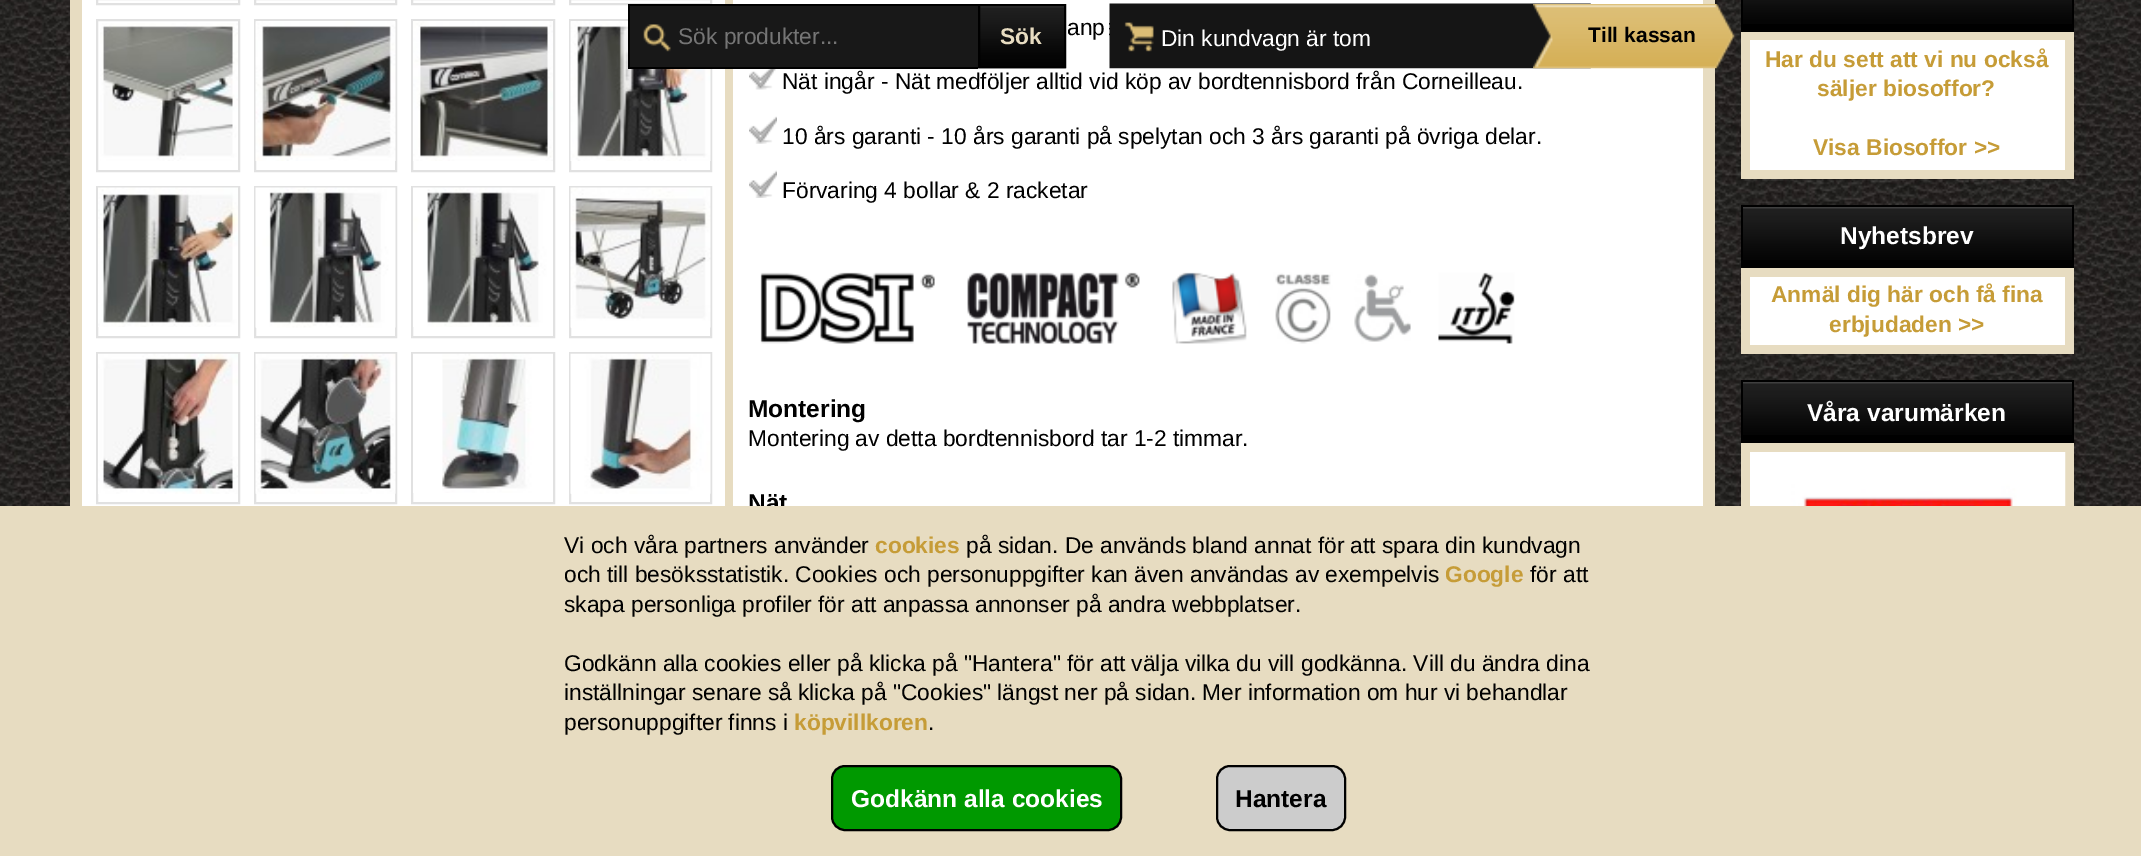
%!PS-Adobe-3.0
%%BoundingBox: 0 0 2141 856
%%LanguageLevel: 3
%%Pages: 1
%%EndComments
%%BeginProlog
/f { fill } bind def
/S { stroke } bind def
/q { gsave } bind def
/Q { grestore } bind def
/w { setlinewidth } bind def
/fn { [ exch dup neg 0 0 3 -1 roll 0 0 ] selectfont } def
/tx { moveto show } def
/bx { rectfill } def
/rr { 5 dict begin { /r /h /w /y /x } { exch def } forall
  x r add y moveto x w add y 2 copy h add r arct x w add y h add x 1 index r arct
  x y h add x y r arct x y 2 copy exch w add exch r arct closepath end } def
/im { 5 dict begin { /h /w /y /x /name } { exch def } forall
  gsave x y translate w h scale
  w h 8 [w 0 0 h 0 0] name (r) file false 3 colorimage grestore end } def
%%EndProlog
%%BeginSetup
<< /PageSize [2141 856] >> setpagedevice
%%EndSetup
%%Page: 1 1
0 856 translate 1 -1 scale
4 setmiterlimit
1 setgray
0 0 2141 856 bx
(image0.raw) 0 0 2141 506 im
0.906 0.863 0.757 setrgbcolor
70 0 1645 506 bx
1 setgray
82 0 643 506 bx
0.882 setgray
2 w
97 -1 142 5 rectstroke
255 -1 141 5 rectstroke
412 -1 142 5 rectstroke
570 -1 141 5 rectstroke
97 20 142 151 rectstroke
(image1.raw) 100 23 138 138 im
255 20 141 151 rectstroke
(image2.raw) 255 21 141 140 im
412 20 142 151 rectstroke
(image3.raw) 413 21 140 140 im
570 20 141 151 rectstroke
(image4.raw) 570 21 141 140 im
97 187 142 150 rectstroke
(image5.raw) 98 187 140 140 im
255 187 141 150 rectstroke
(image6.raw) 255 187 141 141 im
412 187 142 150 rectstroke
(image7.raw) 413 187 140 140 im
570 187 141 150 rectstroke
(image8.raw) 570 187 141 141 im
97 353 142 150 rectstroke
(image9.raw) 98 353 140 141 im
255 353 141 150 rectstroke
(image10.raw) 255 353 141 141 im
412 353 142 150 rectstroke
(image11.raw) 413 353 140 140 im
570 353 141 150 rectstroke
(image12.raw) 570 353 141 141 im
1 setgray
733 0 970 506 bx
/LiberationSans-Regular 22.75 fn
0 setgray
(anp) 1067 35 tx
(image13.raw) 749 69 27 21 im
(Nät ingår - Nät medföljer alltid vid köp av bordtennisbord från Corneilleau.) 782 89 tx
(image14.raw) 749 116 28 28 im
(10 års garanti - 10 års garanti på spelytan och 3 års garanti på övriga delar.) 782 144 tx
(image15.raw) 749 170 28 28 im
(Förvaring 4 bollar & 2 racketar) 782 198 tx
(image16.raw) 760 272 755 72 im
/LiberationSans-Bold 24.5 fn
(Montering) 748 417 tx
/LiberationSans-Regular 22.75 fn
(Montering av detta bordtennisbord tar 1-2 timmar.) 748 446 tx
/LiberationSans-Bold 24.5 fn
(Nät) 748 511 tx
0.094 setgray
630 6 348 61 bx
(image17.raw) 643 24 28 28 im
0 setgray
628 4 350 2 bx
628 67 350 2 bx
628 4 2 64 bx
/LiberationSans-Regular 22.75 fn
0.459 setgray
(Sök produkter...) 678 44 tx
(image18.raw) 978 6 88 63 im
0 setgray
979 5 86 62 rectstroke
/LiberationSans-Bold 22.75 fn
0.906 0.863 0.757 setrgbcolor
(Sök) 1000 44 tx
(image19.raw) 1109 3 482 66 im
/LiberationSans-Regular 22.75 fn
1 setgray
(Din kundvagn är tom) 1161 46 tx
(image20.raw) 1533 4 202 65 im
/LiberationSans-Bold 21 fn
0 setgray
(Till kassan) 1588 42 tx
1743 24 329 8 bx
(image21.raw) 1743 0 329 24 im
2072 0 2 32 bx
1741 0 2 32 bx
0.906 0.863 0.757 setrgbcolor
1741 32 333 147 bx
1 setgray
1750 40 315 130 bx
/LiberationSans-Bold 22.75 fn
0.776 0.612 0.216 setrgbcolor
(Har du sett att vi nu också) 1765 67 tx
(säljer biosoffor?) 1817 96 tx
(Visa Biosoffor >>) 1813 155 tx
0 setgray
1743 260 329 8 bx
(image22.raw) 1743 207 329 53 im
1741 205 333 2 bx
2072 205 2 63 bx
1741 205 2 63 bx
/LiberationSans-Bold 24.5 fn
1 setgray
(Nyhetsbrev) 1840 244 tx
0.906 0.863 0.757 setrgbcolor
1741 268 333 86 bx
1 setgray
1750 277 315 68 bx
/LiberationSans-Bold 22.75 fn
0.776 0.612 0.216 setrgbcolor
(Anmäl dig här och få fina) 1771 302 tx
(erbjudaden >>) 1829 332 tx
0 setgray
1743 435 329 8 bx
(image22.raw) 1743 382 329 53 im
1741 380 333 2 bx
2072 380 2 63 bx
1741 380 2 63 bx
/LiberationSans-Bold 24.5 fn
1 setgray
(Våra varumärken) 1807 421 tx
0.906 0.863 0.757 setrgbcolor
1741 443 333 63 bx
(image23.raw) 1768 470 279 36 im
1 setgray
18 w
1759 461 297 157 rectstroke
0.906 0.863 0.757 setrgbcolor
0 506 2141 350 bx
/LiberationSans-Regular 22.75 fn
0 setgray
(Vi och våra partners använder) 564 553 tx
/LiberationSans-Bold 22.75 fn
0.776 0.612 0.216 setrgbcolor
(cookies) 875 553 tx
/LiberationSans-Regular 22.75 fn
0 setgray
(på sidan. De används bland annat för att spara din kundvagn) 966 553 tx
(och till besöksstatistik. Cookies och personuppgifter kan även användas av exempelvis) 564 582 tx
/LiberationSans-Bold 22.75 fn
0.776 0.612 0.216 setrgbcolor
(Google) 1445 582 tx
/LiberationSans-Regular 22.75 fn
0 setgray
(för att) 1530 582 tx
(skapa personliga profiler för att anpassa annonser på andra webbplatser.) 564 612 tx
(Godkänn alla cookies eller på klicka på "Hantera" för att välja vilka du vill godkänna. Vill du ändra dina) 564 671 tx
(inställningar senare så klicka på "Cookies" längst ner på sidan. Mer information om hur vi behandlar) 564 700 tx
(personuppgifter finns i) 564 730 tx
/LiberationSans-Bold 22.75 fn
0.776 0.612 0.216 setrgbcolor
(köpvillkoren) 794 730 tx
/LiberationSans-Regular 22.75 fn
0 setgray
(.) 928 730 tx
0 0.6 0 setrgbcolor
832 766 289 64 13 rr q f Q
0 setgray
2 w
S
/LiberationSans-Bold 24.5 fn
1 setgray
(Godkänn alla cookies) 851 807 tx
0.8 setgray
1217 766 128 64 13 rr q f Q
0 setgray
S
(Hantera) 1235 807 tx
showpage
%%EOF
